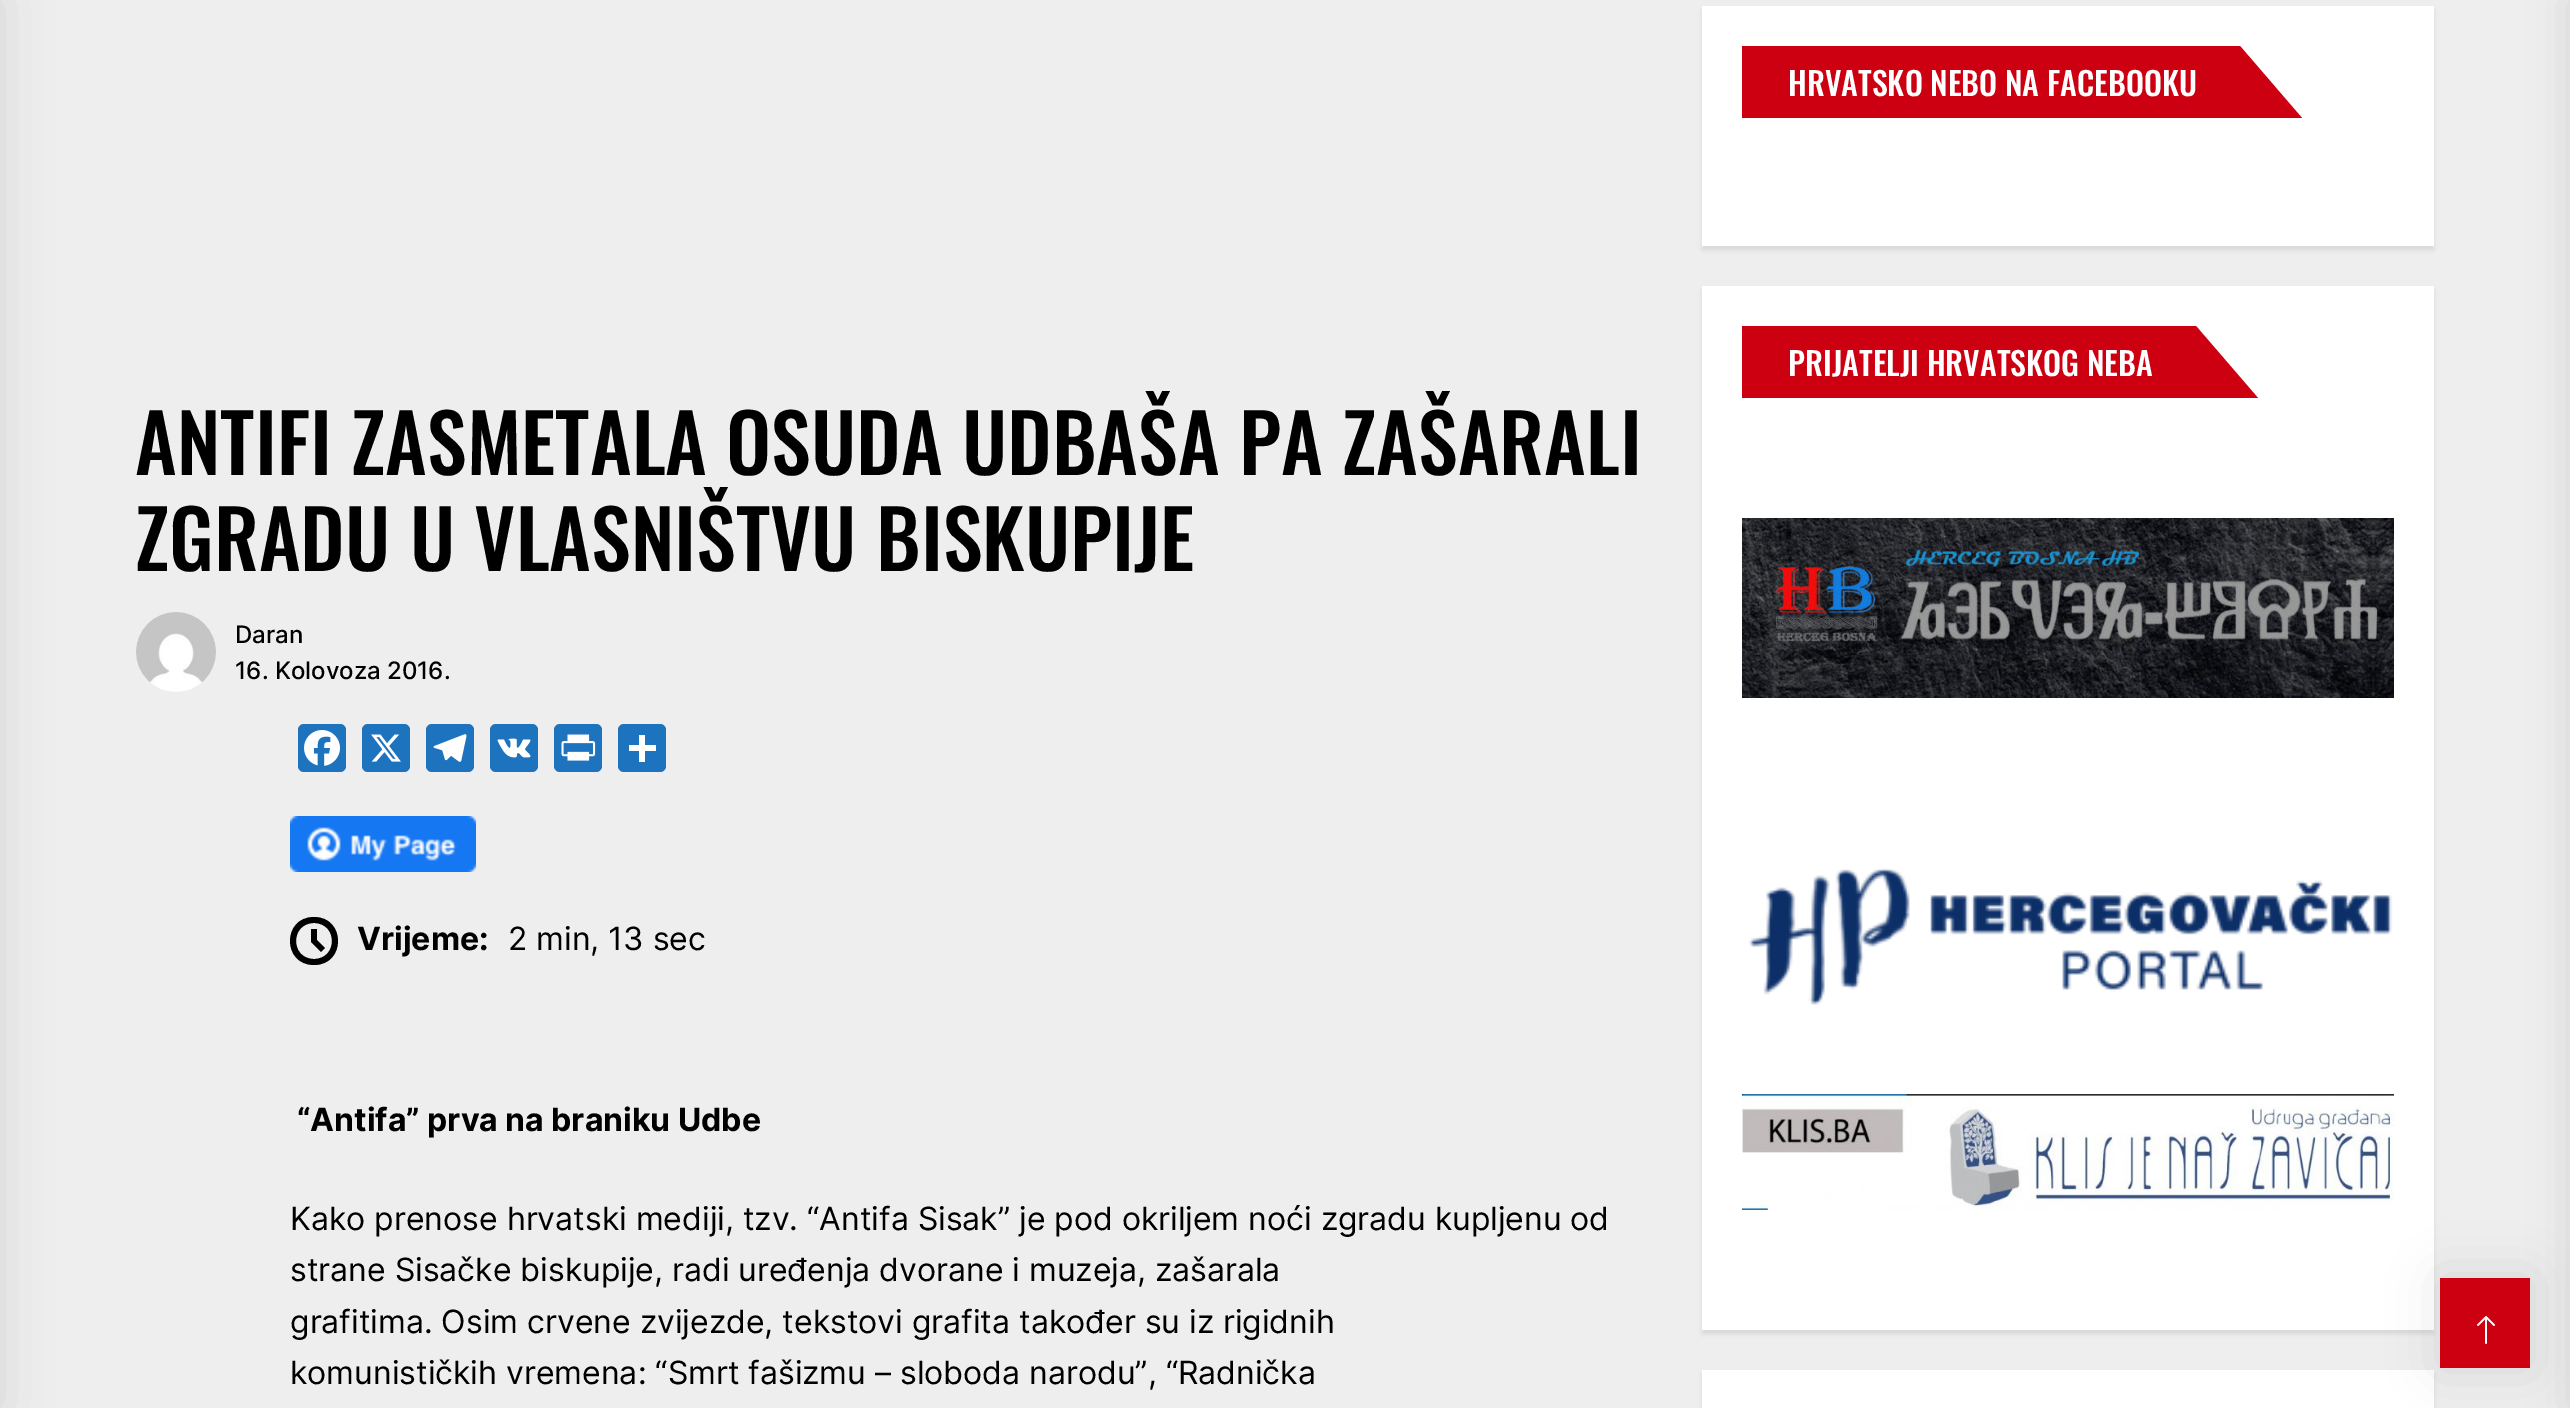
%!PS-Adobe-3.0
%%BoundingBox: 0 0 2570 1408
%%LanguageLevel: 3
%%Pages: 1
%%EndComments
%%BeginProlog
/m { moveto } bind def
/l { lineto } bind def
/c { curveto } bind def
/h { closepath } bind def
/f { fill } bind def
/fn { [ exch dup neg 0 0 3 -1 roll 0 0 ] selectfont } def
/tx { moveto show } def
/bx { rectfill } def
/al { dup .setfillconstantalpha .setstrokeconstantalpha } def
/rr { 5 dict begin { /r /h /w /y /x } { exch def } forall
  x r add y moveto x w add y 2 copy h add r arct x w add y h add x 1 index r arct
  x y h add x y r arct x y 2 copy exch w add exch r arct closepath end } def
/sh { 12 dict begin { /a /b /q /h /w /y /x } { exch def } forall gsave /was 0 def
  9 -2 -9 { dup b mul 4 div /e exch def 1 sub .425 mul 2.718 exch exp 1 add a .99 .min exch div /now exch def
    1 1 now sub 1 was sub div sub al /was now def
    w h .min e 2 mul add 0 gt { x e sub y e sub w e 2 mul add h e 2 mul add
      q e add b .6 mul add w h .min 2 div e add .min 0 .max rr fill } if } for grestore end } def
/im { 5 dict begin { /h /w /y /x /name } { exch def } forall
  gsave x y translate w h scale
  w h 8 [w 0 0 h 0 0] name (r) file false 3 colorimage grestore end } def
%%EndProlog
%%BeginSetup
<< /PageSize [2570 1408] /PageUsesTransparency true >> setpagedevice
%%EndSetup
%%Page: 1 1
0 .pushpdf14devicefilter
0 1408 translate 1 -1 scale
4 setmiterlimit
0.933 setgray
0 0 2570 1408 bx
0 setgray
-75 0 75 1408 0 25 0.1 sh
1702 10 732 240 0 2 0.08 sh
1 setgray
1702 6 732 240 bx
0.8 0 0.063 setrgbcolor
1742 46 498 72 bx
/Oswald-Medium 32 fn
1 setgray
(HRVATSKO NEBO NA FACEBOOKU) 1788 96 tx
0.8 0 0.063 setrgbcolor
2240 118 m 2240 46 l 2302 118 l h f
0 setgray
1702 290 732 1044 0 2 0.08 sh
1 setgray
1702 286 732 1044 bx
0.8 0 0.063 setrgbcolor
1742 326 454 72 bx
1 setgray
(PRIJATELJI HRVATSKOG NEBA) 1788 376 tx
0.8 0 0.063 setrgbcolor
2196 398 m 2196 326 l 2258 398 l h f
(image0.raw) 1742 518 652 180 im
(image1.raw) 1749 868 644 137 im
(image2.raw) 1742 1094 652 116 im
0 setgray
1702 1374 732 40 0 2 0.08 sh
1 setgray
1702 1370 732 38 bx
/Oswald-Medium 80 fn
0 setgray
(ANTIFI ZASMETALA OSUDA UDBAŠA PA ZAŠARALI) 135 475 tx
(ZGRADU U VLASNIŠTVU BISKUPIJE) 135 571 tx
(image3.raw) 136 612 80 80 im
/Inter-Medium 24 fn
(Daran) 235 643 tx
(16. Kolovoza 2016.) 235 679 tx
0.118 0.451 0.745 setrgbcolor
298 724 48 48 6 rr f
(image4.raw) 304 730 36 36 im
362 724 48 48 6 rr f
(image5.raw) 371 734 30 28 im
426 724 48 48 6 rr f
(image6.raw) 433 734 34 28 im
490 724 48 48 6 rr f
(image7.raw) 497 738 34 20 im
554 724 48 48 6 rr f
(image8.raw) 561 734 35 27 im
618 724 48 48 6 rr f
1 setgray
639 735 6 27 bx
629 745 27 6 bx
(image9.raw) 290 816 186 56 im
0 setgray
321 952 m 311 942 l 311 929 l 317 929 l 317 940 l 325 948 l h 314 917 m 282 917 282 965 314 965 c 346 965 346 917 314 917 c h 314 959 m 290 959 290 923 314 923 c 338 923 338 959 314 959 c h f
/Inter-Bold 32 fn
(Vrijeme:) 357 950 tx
/Inter-Regular 32 fn
(2 min, 13 sec) 508 950 tx
/Inter-Bold 32 fn
(“Antifa” prva na braniku Udbe) 297 1131 tx
/Inter-Regular 32 fn
(Kako prenose hrvatski mediji, tzv. “Antifa Sisak” je pod okriljem noći zgradu kupljenu od) 290 1230 tx
(strane Sisačke biskupije, radi uređenja dvorane i muzeja, zašarala) 290 1281 tx
(grafitima. Osim crvene zvijezde, tekstovi grafita također su iz rigidnih) 290 1333 tx
(komunističkih vremena: “Smrt fašizmu – sloboda narodu”, “Radnička) 290 1384 tx
2570 0 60 1408 0 20 0.1 sh
2440 1278 90 90 0 25 0.1 sh
0.8 0 0.063 setrgbcolor
2440 1278 90 90 bx
(image10.raw) 2477 1316 18 28 im
.poppdf14devicefilter showpage
%%EOF
